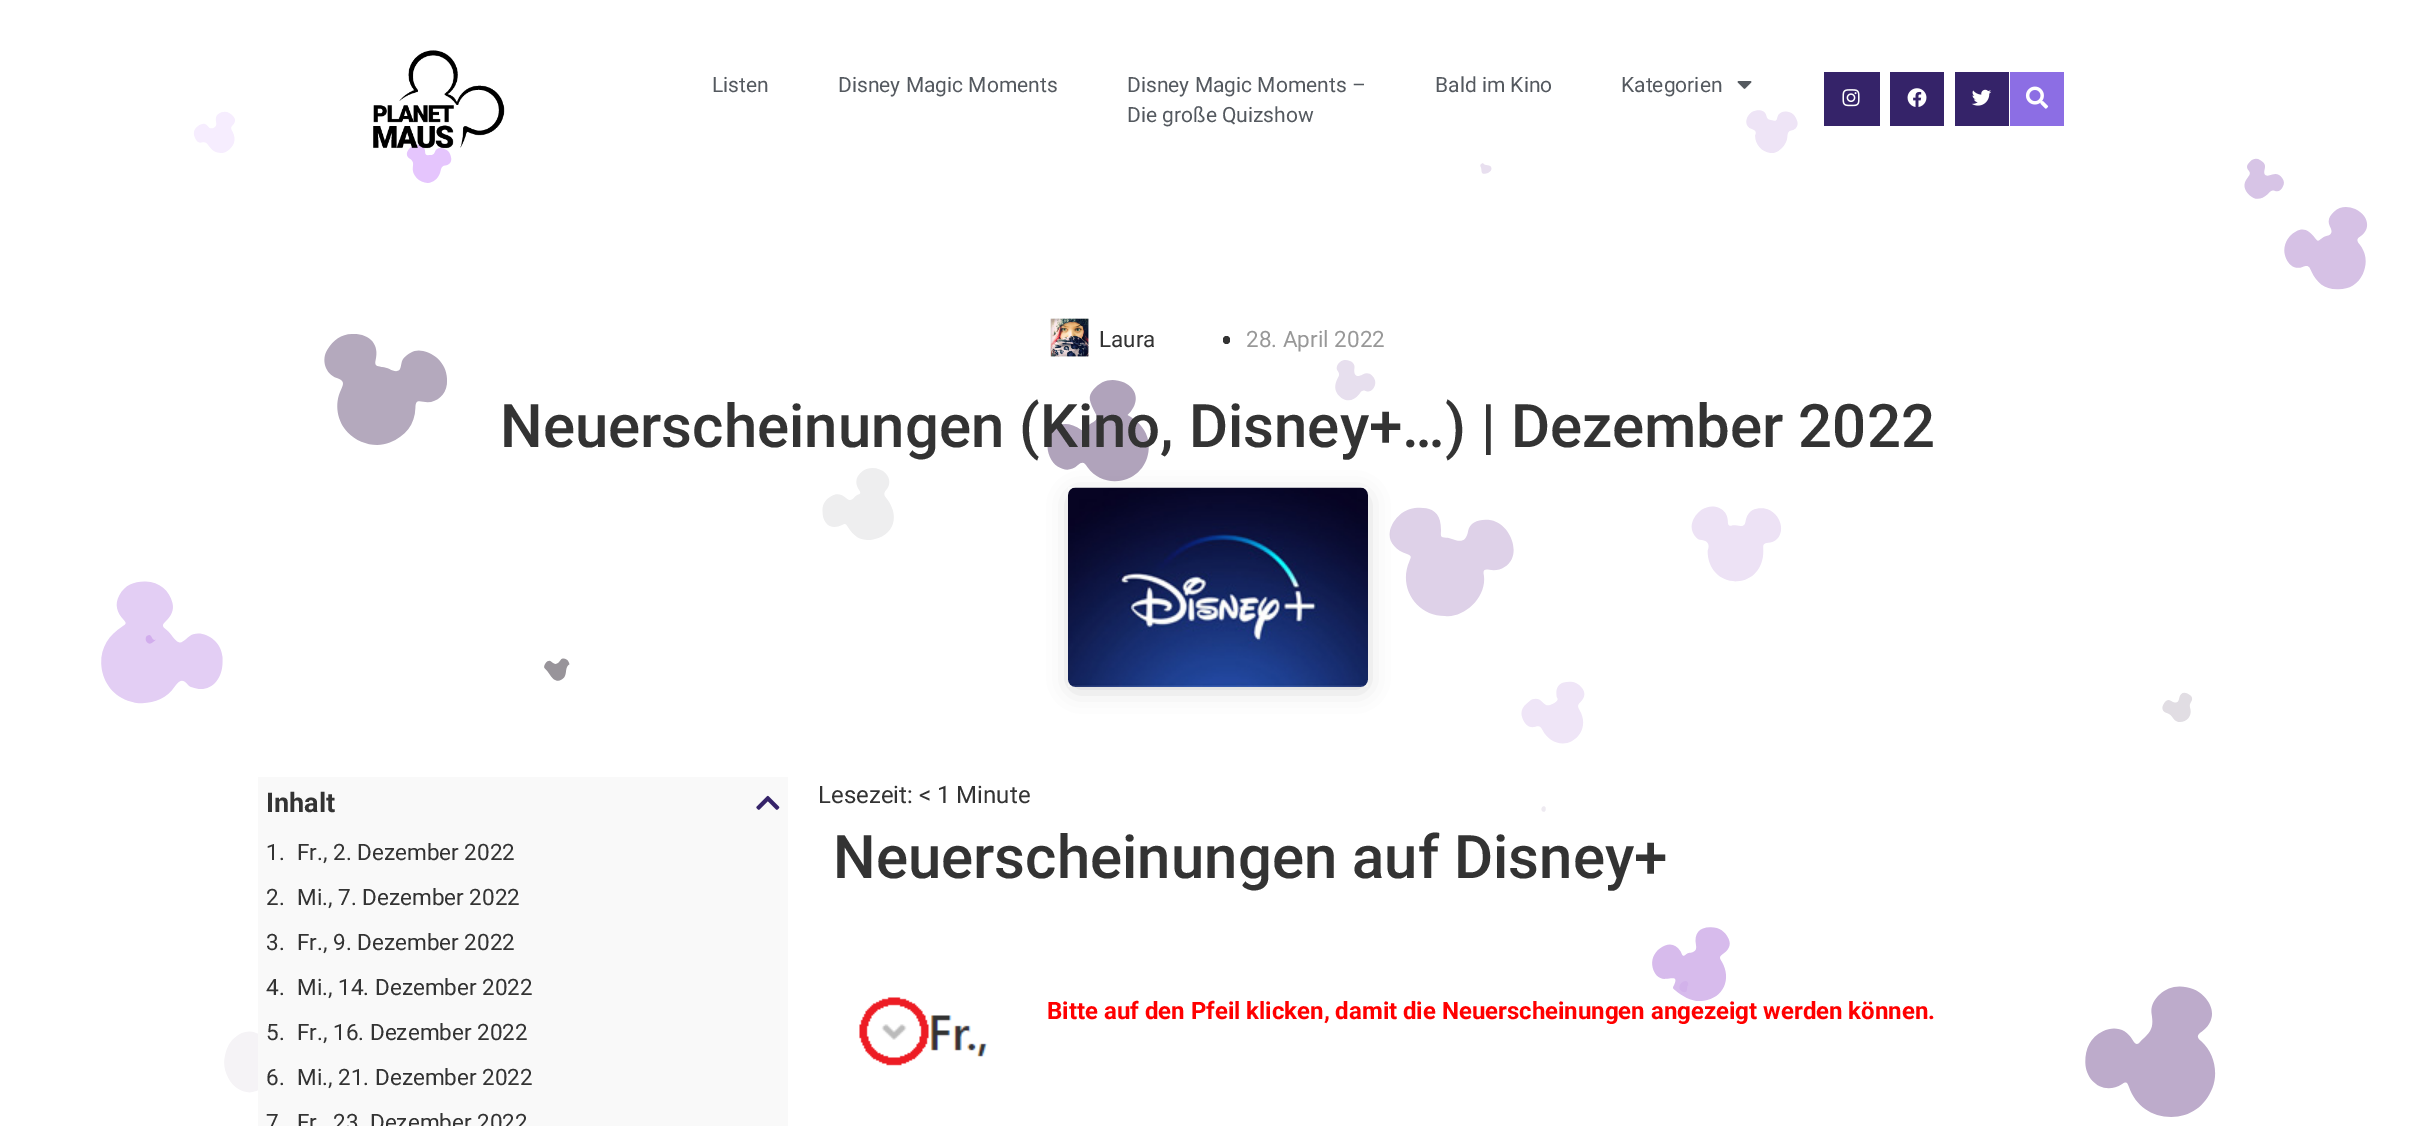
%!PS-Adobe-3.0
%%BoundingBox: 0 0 2434 1126
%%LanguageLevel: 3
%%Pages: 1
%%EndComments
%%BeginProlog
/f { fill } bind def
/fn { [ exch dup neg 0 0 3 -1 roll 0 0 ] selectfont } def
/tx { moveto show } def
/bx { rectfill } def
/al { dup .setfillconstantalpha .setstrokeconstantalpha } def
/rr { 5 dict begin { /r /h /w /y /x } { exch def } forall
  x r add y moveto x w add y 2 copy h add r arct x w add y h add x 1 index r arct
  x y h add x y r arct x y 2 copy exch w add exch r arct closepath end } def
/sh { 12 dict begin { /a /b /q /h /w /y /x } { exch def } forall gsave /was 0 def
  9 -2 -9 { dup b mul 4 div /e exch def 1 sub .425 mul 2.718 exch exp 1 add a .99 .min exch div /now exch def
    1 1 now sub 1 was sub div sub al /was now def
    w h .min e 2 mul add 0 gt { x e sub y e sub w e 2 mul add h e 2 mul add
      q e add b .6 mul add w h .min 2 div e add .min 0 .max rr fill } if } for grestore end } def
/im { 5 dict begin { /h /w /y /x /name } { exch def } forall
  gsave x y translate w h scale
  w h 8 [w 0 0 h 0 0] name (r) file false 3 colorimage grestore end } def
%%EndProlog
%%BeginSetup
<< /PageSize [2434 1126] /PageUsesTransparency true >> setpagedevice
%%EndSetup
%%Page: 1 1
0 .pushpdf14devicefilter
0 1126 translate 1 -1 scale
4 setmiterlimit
1 setgray
0 0 2434 1126 bx
(image0.raw) 101 110 2267 1007 im
(image1.raw) 373 50 132 99 im
/Roboto-Regular 21 fn
0.329 0.349 0.373 setrgbcolor
(Listen) 712 92 tx
(Disney Magic Moments) 838 92 tx
(Disney Magic Moments –) 1127 92 tx
(Die große Quizshow) 1127 122 tx
(Bald im Kino) 1435 92 tx
(Kategorien) 1621 92 tx
(image2.raw) 1737 81 15 8 im
0.208 0.137 0.412 setrgbcolor
1824 72 56 54 bx
(image3.raw) 1842 89 18 18 im
1890 72 54 54 bx
(image4.raw) 1907 88 20 19 im
1955 72 54 54 bx
(image5.raw) 1971 89 21 17 im
0.549 0.431 0.894 setrgbcolor
2010 72 54 54 bx
(image6.raw) 2025 86 24 23 im
(image7.raw) 1050 318 39 39 im
/Roboto-Regular 22.5 fn
0.2 setgray
(Laura) 1099 347 tx
1223 336 7 8 3.5 rr f
0.596 setgray
(28. April 2022) 1246 347 tx
/Roboto-Medium 60 fn
0.2 setgray
(Neuerscheinungen \(Kino, Disney+…\) | Dezember 2022) 500 447 tx
0 setgray
1073 497 291 190 3 12 0.2 sh
(image8.raw) 1068 487 300 200 im
0.976 setgray
258 777 530 349 bx
/Roboto-Bold 27 fn
0.2 setgray
(Inhalt) 266 812 tx
(image9.raw) 756 795 24 15 im
/Roboto-Regular 22.5 fn
(1.) 266 860 tx
(Fr., 2. Dezember 2022) 297 860 tx
(2.) 266 905 tx
(Mi., 7. Dezember 2022) 297 905 tx
(3.) 266 950 tx
(Fr., 9. Dezember 2022) 297 950 tx
(4.) 266 995 tx
(Mi., 14. Dezember 2022) 297 995 tx
(5.) 266 1040 tx
(Fr., 16. Dezember 2022) 297 1040 tx
(6.) 266 1085 tx
(Mi., 21. Dezember 2022) 297 1085 tx
(7) 266 1130 tx
(Fr) 297 1130 tx
(23. Dezember 2022) 333 1130 tx
/Roboto-Regular 24 fn
(Lesezeit: < 1 Minute) 818 803 tx
/Roboto-Medium 60 fn
(Neuerscheinungen auf Disney+) 833 878 tx
(image10.raw) 859 997 129 69 im
/Roboto-Bold 24 fn
1 0 0 setrgbcolor
(Bitte auf den Pfeil klicken, damit die Neuerscheinungen angezeigt werden können.) 1047 1019 tx
.poppdf14devicefilter showpage
%%EOF
